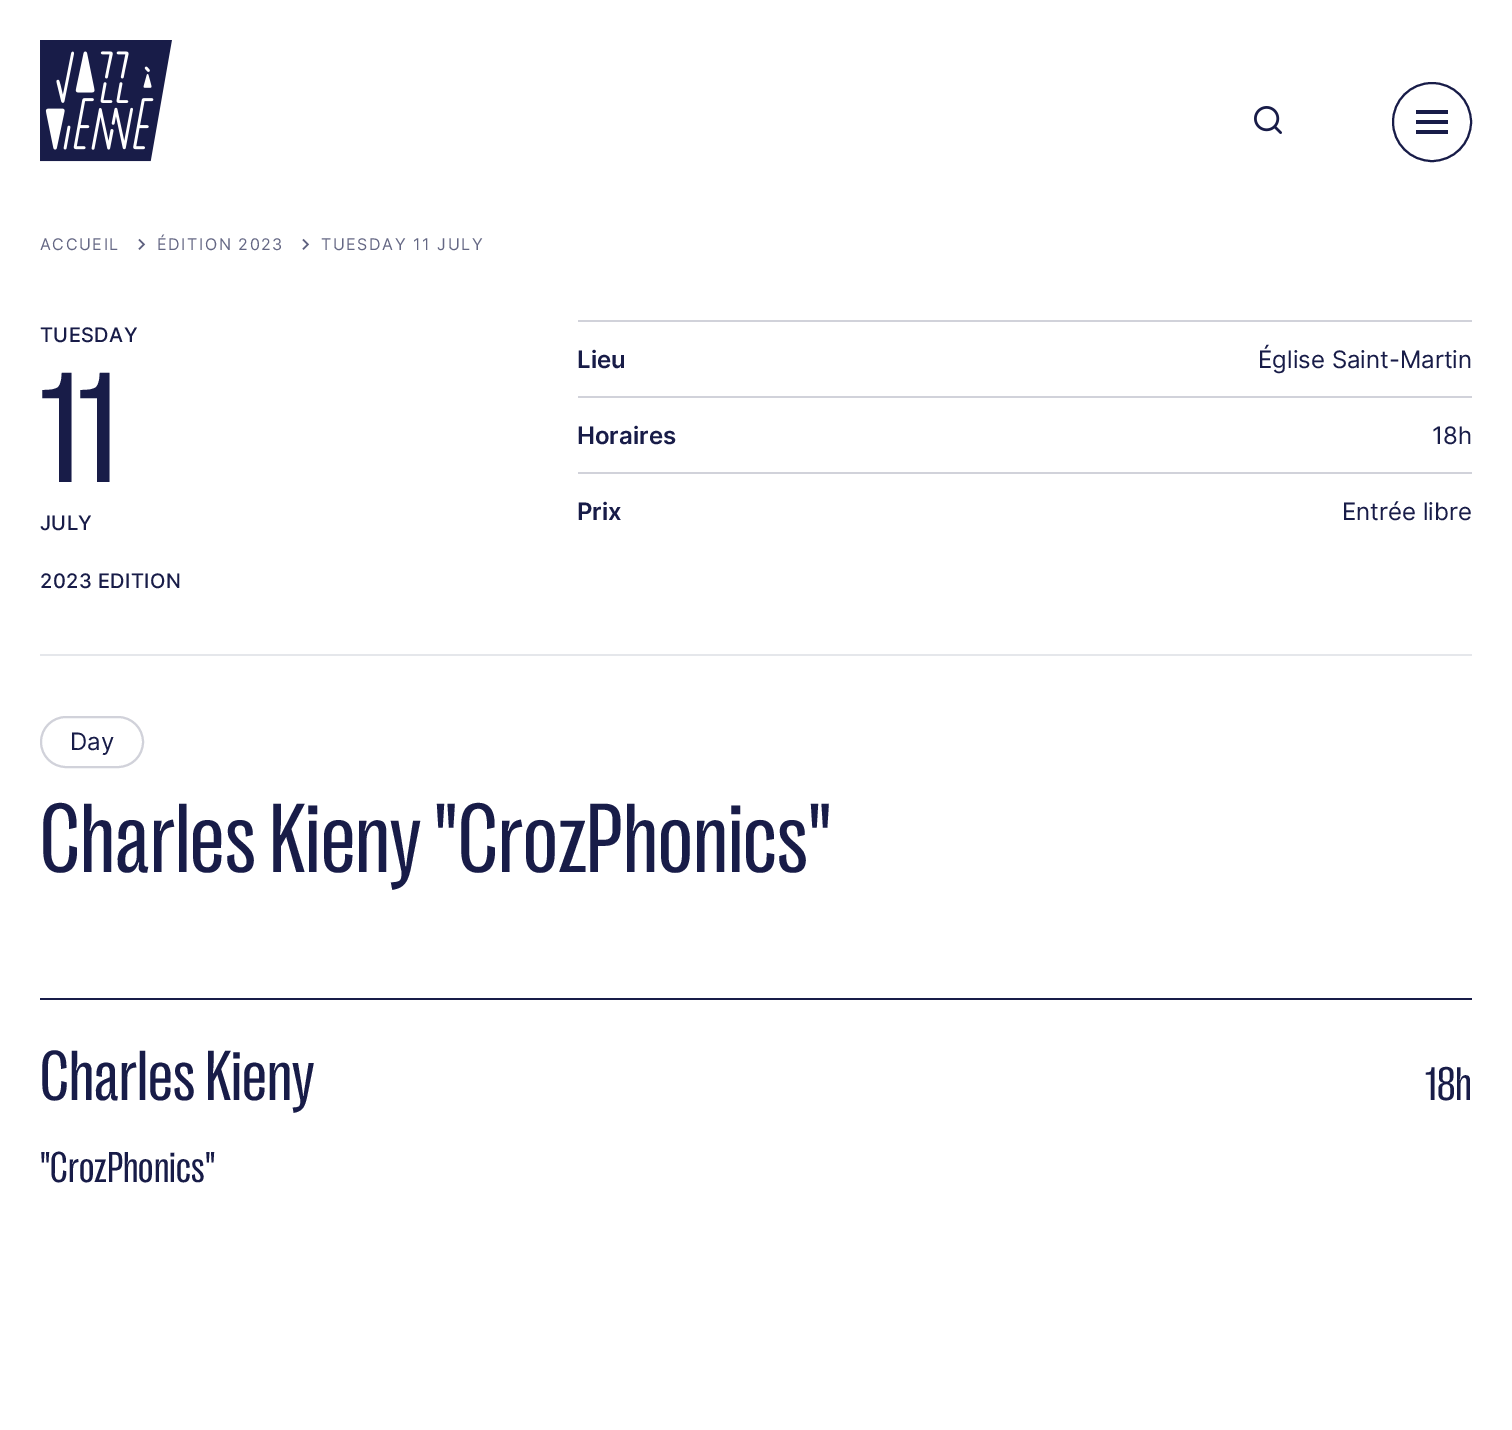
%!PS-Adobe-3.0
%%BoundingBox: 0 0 1512 1430
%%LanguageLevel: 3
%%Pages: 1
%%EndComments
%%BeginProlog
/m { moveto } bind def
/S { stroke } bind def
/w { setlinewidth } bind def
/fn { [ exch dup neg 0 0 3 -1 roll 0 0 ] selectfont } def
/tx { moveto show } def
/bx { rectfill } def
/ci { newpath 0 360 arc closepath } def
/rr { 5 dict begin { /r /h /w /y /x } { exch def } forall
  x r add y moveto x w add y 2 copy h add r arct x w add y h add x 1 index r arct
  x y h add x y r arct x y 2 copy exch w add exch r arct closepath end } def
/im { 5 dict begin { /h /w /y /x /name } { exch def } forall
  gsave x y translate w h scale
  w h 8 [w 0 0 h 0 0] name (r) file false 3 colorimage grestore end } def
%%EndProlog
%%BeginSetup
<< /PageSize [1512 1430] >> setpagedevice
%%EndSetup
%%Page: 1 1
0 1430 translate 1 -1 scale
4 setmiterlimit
1 setgray
0 0 1512 1430 bx
(image0.raw) 40 40 132 122 im
(image1.raw) 1254 106 28 28 im
0.094 0.11 0.282 setrgbcolor
2 w
1432 122 39 ci S
1416 110 32 4 bx
1416 120 32 4 bx
1416 130 32 4 bx
/Inter-Regular 16 fn
0.392 0.404 0.518 setrgbcolor
40 250 m 1.6 0 (ACCUEIL) ashow
(image2.raw) 138 238 8 12 im
157 250 m 1.6 0 (ÉDITION 2023) ashow
(image2.raw) 302 238 8 12 im
321 250 m 1.6 0 (TUESDAY 11 JULY) ashow
/Inter-Medium 20 fn
0.094 0.11 0.282 setrgbcolor
40 342 m 0.4 0 (TUESDAY) ashow
/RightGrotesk-Regular 160 fn
(11) 40 482 tx
/Inter-Medium 20 fn
40 530 m 0.4 0 (JULY) ashow
40 588 m 0.4 0 (2023 EDITION) ashow
0.82 0.824 0.855 setrgbcolor
578 320 894 2 bx
/Inter-SemiBold 24 fn
0.094 0.11 0.282 setrgbcolor
(Lieu) 577 368 tx
/Inter-Regular 24 fn
(Église Saint-Martin) 1258 368 tx
0.82 0.824 0.855 setrgbcolor
578 396 894 2 bx
/Inter-SemiBold 24 fn
0.094 0.11 0.282 setrgbcolor
(Horaires) 577 444 tx
/Inter-Regular 24 fn
(18h) 1432 444 tx
0.82 0.824 0.855 setrgbcolor
578 472 894 2 bx
/Inter-SemiBold 24 fn
0.094 0.11 0.282 setrgbcolor
(Prix) 577 520 tx
/Inter-Regular 24 fn
(Entrée libre) 1342 520 tx
0.898 0.906 0.922 setrgbcolor
40 654 1432 2 bx
0.82 0.824 0.855 setrgbcolor
41 717 102 50 25 rr S
0.094 0.11 0.282 setrgbcolor
(Day) 70 750 tx
/RightGrotesk-Regular 100 fn
(Charles Kieny "CrozPhonics") 40 872 tx
40 998 1432 2 bx
/RightGrotesk-Regular 72 fn
(Charles Kieny) 40 1100 tx
/RightGrotesk-Regular 48 fn
(18h) 1425 1100 tx
/RightGrotesk-Regular 44 fn
("CrozPhonics") 40 1182 tx
showpage
%%EOF
